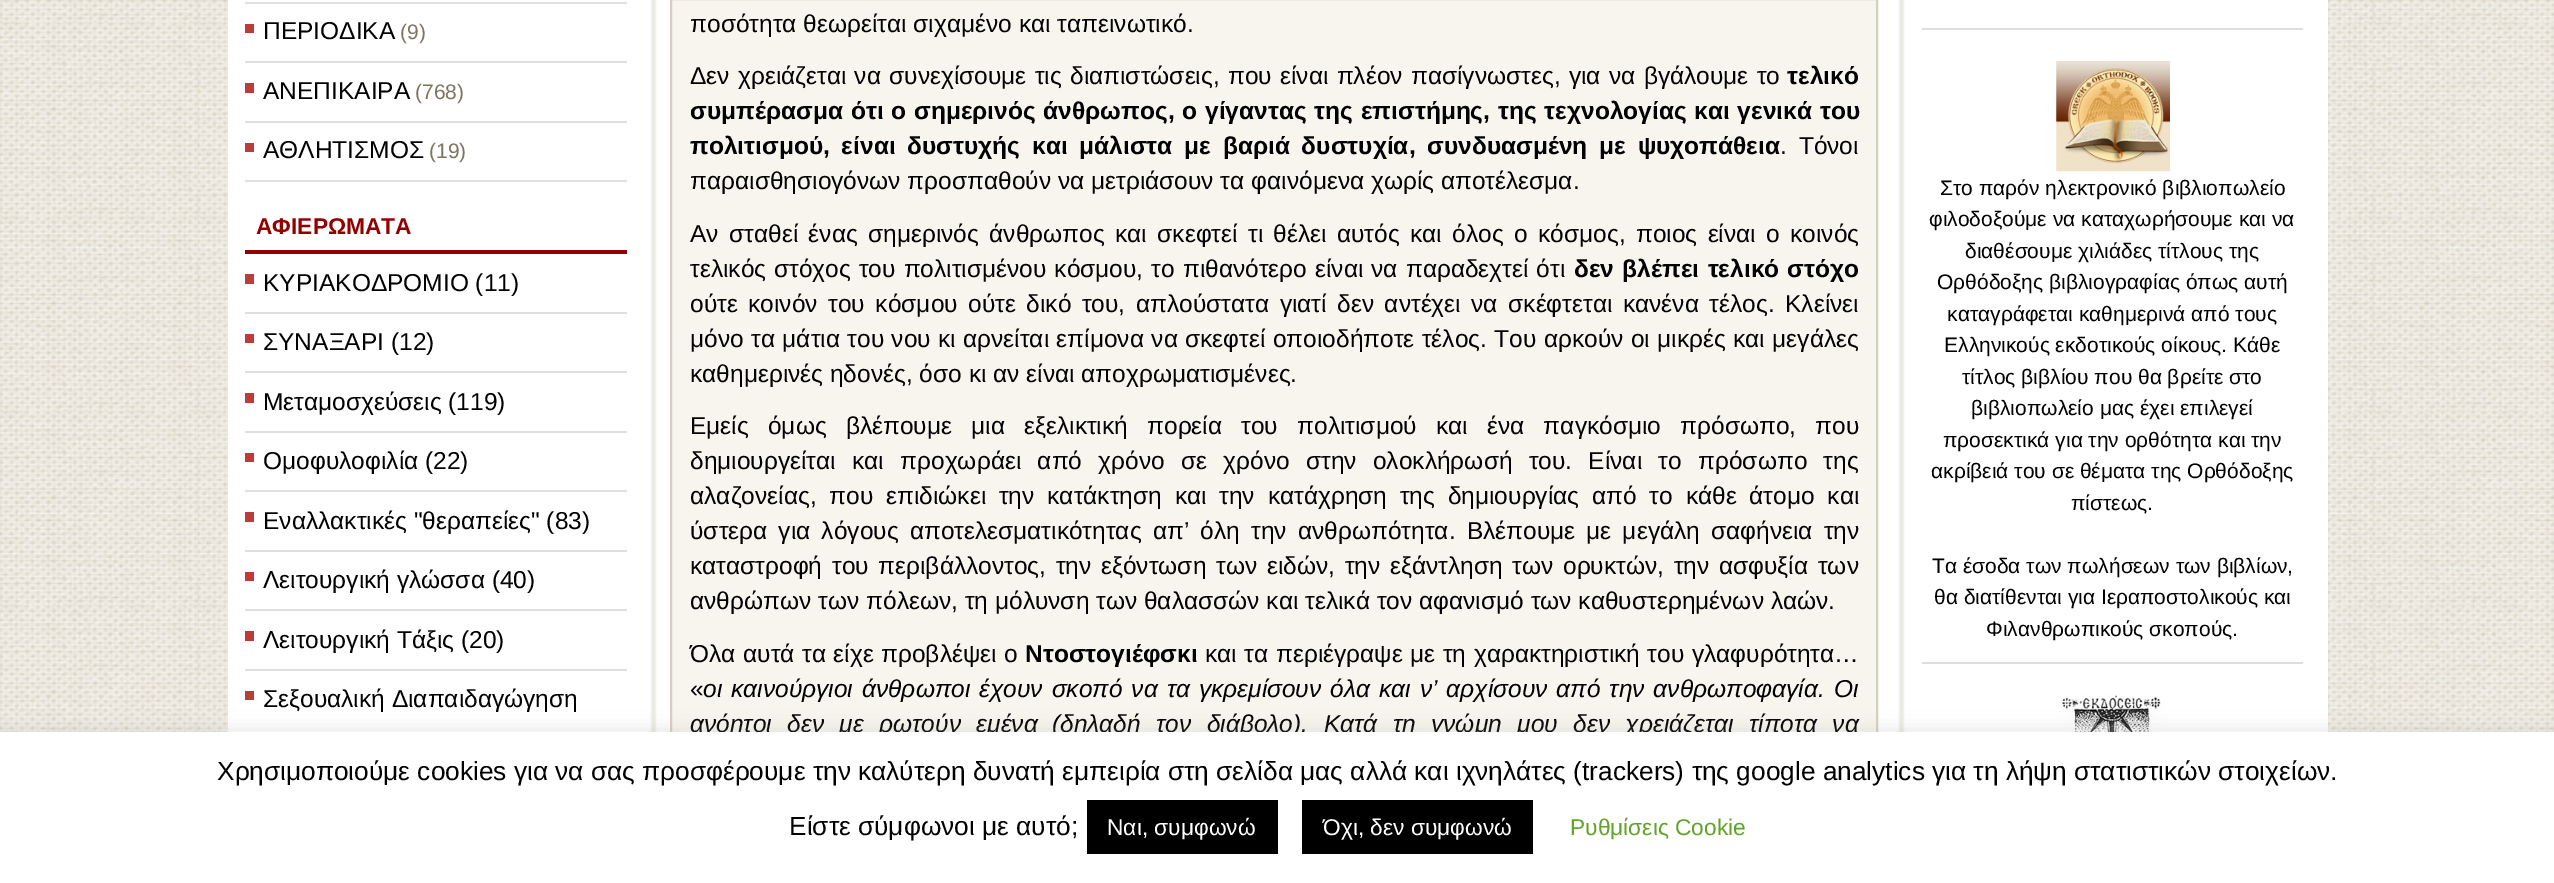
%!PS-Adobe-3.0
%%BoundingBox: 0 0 2554 883
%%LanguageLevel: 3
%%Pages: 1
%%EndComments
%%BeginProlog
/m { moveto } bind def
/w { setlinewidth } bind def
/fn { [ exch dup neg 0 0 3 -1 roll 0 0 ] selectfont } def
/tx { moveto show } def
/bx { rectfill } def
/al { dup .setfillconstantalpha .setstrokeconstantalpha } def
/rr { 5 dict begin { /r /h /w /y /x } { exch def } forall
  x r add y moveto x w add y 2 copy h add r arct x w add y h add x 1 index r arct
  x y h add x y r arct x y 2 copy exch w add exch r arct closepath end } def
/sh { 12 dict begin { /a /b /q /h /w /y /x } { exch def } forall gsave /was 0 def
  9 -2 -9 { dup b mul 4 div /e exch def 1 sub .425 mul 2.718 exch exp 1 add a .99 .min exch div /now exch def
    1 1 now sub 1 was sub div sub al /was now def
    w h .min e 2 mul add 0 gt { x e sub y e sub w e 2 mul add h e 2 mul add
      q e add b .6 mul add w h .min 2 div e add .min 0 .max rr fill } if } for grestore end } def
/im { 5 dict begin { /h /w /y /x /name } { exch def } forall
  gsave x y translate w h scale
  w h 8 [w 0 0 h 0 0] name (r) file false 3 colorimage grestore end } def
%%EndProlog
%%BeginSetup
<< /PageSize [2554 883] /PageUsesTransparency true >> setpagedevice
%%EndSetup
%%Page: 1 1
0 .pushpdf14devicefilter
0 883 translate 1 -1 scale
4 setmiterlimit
1 setgray
0 0 2554 883 bx
(image0.raw) 0 0 2554 732 im
228 0 2100 732 bx
(image1.raw) 650 0 1255 732 im
0.878 setgray
245 2 382 2 bx
0.741 0.231 0.22 setrgbcolor
245 24 9 9 bx
0.878 setgray
245 61 382 2 bx
/LiberationSans-Regular 24.5 fn
0 setgray
(ΠΕΡΙΟΔΙΚΑ) 263 39 tx
/LiberationSans-Regular 21 fn
0.494 0.455 0.376 setrgbcolor
(\(9\)) 400 39 tx
0.741 0.231 0.22 setrgbcolor
245 83 9 10 bx
0.878 setgray
245 121 382 2 bx
/LiberationSans-Regular 24.5 fn
0 setgray
(ΑΝΕΠΙΚΑΙΡΑ) 263 99 tx
/LiberationSans-Regular 21 fn
0.494 0.455 0.376 setrgbcolor
(\(768\)) 415 99 tx
0.741 0.231 0.22 setrgbcolor
245 143 9 9 bx
0.878 setgray
245 180 382 2 bx
/LiberationSans-Regular 24.5 fn
0 setgray
(ΑΘΛΗΤΙΣΜΟΣ) 263 158 tx
/LiberationSans-Regular 21 fn
0.494 0.455 0.376 setrgbcolor
(\(19\)) 429 158 tx
0.58 0 0.004 setrgbcolor
245 250 382 4 bx
/LiberationSans-Bold 22.75 fn
(ΑΦΙΕΡΩΜΑΤΑ) 256 234 tx
0.741 0.231 0.22 setrgbcolor
245 274 9 10 bx
0.878 setgray
245 312 382 2 bx
/LiberationSans-Regular 24.5 fn
0 setgray
(ΚΥΡΙΑΚΟΔΡΟΜΙΟ \(11\)) 263 291 tx
0.741 0.231 0.22 setrgbcolor
245 334 9 9 bx
0.878 setgray
245 371 382 2 bx
0 setgray
(ΣΥΝΑΞΑΡΙ \(12\)) 263 350 tx
0.741 0.231 0.22 setrgbcolor
245 393 9 10 bx
0.878 setgray
245 431 382 2 bx
0 setgray
(Μεταμοσχεύσεις \(119\)) 263 410 tx
0.741 0.231 0.22 setrgbcolor
245 453 9 9 bx
0.878 setgray
245 490 382 2 bx
0 setgray
(Ομοφυλοφιλία \(22\)) 263 469 tx
0.741 0.231 0.22 setrgbcolor
245 512 9 10 bx
0.878 setgray
245 550 382 2 bx
0 setgray
(Εναλλακτικές "θεραπείες" \(83\)) 263 529 tx
0.741 0.231 0.22 setrgbcolor
245 572 9 9 bx
0.878 setgray
245 609 382 2 bx
0 setgray
(Λειτουργική γλώσσα \(40\)) 263 588 tx
0.741 0.231 0.22 setrgbcolor
245 631 9 10 bx
0.878 setgray
245 669 382 2 bx
0 setgray
(Λειτουργική Τάξις \(20\)) 263 648 tx
0.741 0.231 0.22 setrgbcolor
245 691 9 9 bx
0 setgray
(Σεξουαλική Διαπαιδαγώγηση) 263 707 tx
0.973 0.961 0.937 setrgbcolor
672 0 1204 732 bx
0.839 0.812 0.753 setrgbcolor
2 w
671 -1 1206 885 rectstroke
0 setgray
(ποσότητα θεωρείται σιχαμένο και ταπεινωτικό.) 690 32 tx
690 84 m 1.5 0 32 (Δεν χρειάζεται να συνεχίσουμε τις διαπιστώσεις, που είναι πλέον πασίγνωστες, για να βγάλουμε το) widthshow
/LiberationSans-Bold 24.5 fn
(τελικό) 1787 84 tx
690 119 m 1 0 32 (συμπέρασμα ότι ο σημερινός άνθρωπος, ο γίγαντας της επιστήμης, της τεχνολογίας και γενικά του) widthshow
690 154 m 5 0 32 (πολιτισμού, είναι δυστυχής και μάλιστα με βαριά δυστυχία, συνδυασμένη με ψυχοπάθεια) widthshow
/LiberationSans-Regular 24.5 fn
1780 154 m 5 0 32 (. Τόνοι) widthshow
(παραισθησιογόνων προσπαθούν να μετριάσουν τα φαινόμενα χωρίς αποτέλεσμα.) 690 189 tx
690 242 m 3.6 0 32 (Αν σταθεί ένας σημερινός άνθρωπος και σκεφτεί τι θέλει αυτός και όλος ο κόσμος, ποιος είναι ο κοινός) widthshow
690 277 m 1.25 0 32 (τελικός στόχος του πολιτισμένου κόσμου, το πιθανότερο είναι να παραδεχτεί ότι) widthshow
/LiberationSans-Bold 24.5 fn
1574 277 m 1.5 0 32 (δεν βλέπει τελικό στόχο) widthshow
/LiberationSans-Regular 24.5 fn
690 312 m 3.75 0 32 (ούτε κοινόν του κόσμου ούτε δικό του, απλούστατα γιατί δεν αντέχει να σκέφτεται κανένα τέλος. Κλείνει) widthshow
690 347 m 0.6 0 32 (μόνο τα μάτια του νου κι αρνείται επίμονα να σκεφτεί οποιοδήποτε τέλος. Του αρκούν οι μικρές και μεγάλες) widthshow
(καθημερινές ηδονές, όσο κι αν είναι αποχρωματισμένες.) 690 382 tx
690 434 m 12.4 0 32 (Εμείς όμως βλέπουμε μια εξελικτική πορεία του πολιτισμού και ένα παγκόσμιο πρόσωπο, που) widthshow
690 469 m 9.5 0 32 (δημιουργείται και προχωράει από χρόνο σε χρόνο στην ολοκλήρωσή του. Είναι το πρόσωπο της) widthshow
690 504 m 6 0 32 (αλαζονείας, που επιδιώκει την κατάκτηση και την κατάχρηση της δημιουργίας από το κάθε άτομο και) widthshow
690 539 m 4.4 0 32 (ύστερα για λόγους αποτελεσματικότητας απ’ όλη την ανθρωπότητα. Βλέπουμε με μεγάλη σαφήνεια την) widthshow
690 574 m 2.9 0 32 (καταστροφή του περιβάλλοντος, την εξόντωση των ειδών, την εξάντληση των ορυκτών, την ασφυξία των) widthshow
(ανθρώπων των πόλεων, τη μόλυνση των θαλασσών και τελικά τον αφανισμό των καθυστερημένων λαών.) 690 609 tx
690 662 m 0.75 0 32 (Όλα αυτά τα είχε προβλέψει ο) widthshow
/LiberationSans-Bold 24.5 fn
(Ντοστογιέφσκι) 1025 662 tx
/LiberationSans-Regular 24.5 fn
1205 662 m 0.75 0 32 (και τα περιέγραψε με τη χαρακτηριστική του γλαφυρότητα…) widthshow
(«) 690 697 tx
/LiberationSans-Italic 24.5 fn
703 697 m 2.25 0 32 (οι καινούργιοι άνθρωποι έχουν σκοπό να τα γκρεμίσουν όλα και ν’ αρχίσουν από την ανθρωποφαγία. Οι) widthshow
690 732 m 8.75 0 32 (ανόητοι δεν με ρωτούν εμένα) widthshow
1052 732 m 8.75 0 32 (\(δηλαδή τον διάβολο\). Κατά τη γνώμη μου δεν χρειάζεται τίποτα να) widthshow
0.867 setgray
1922 28 381 2 bx
(image2.raw) 2056 61 114 111 im
/LiberationSans-Regular 21 fn
0 setgray
(Στο παρόν ηλεκτρονικό βιβλιοπωλείο) 1940 195 tx
(φιλοδοξούμε να καταχωρήσουμε και να) 1929 226 tx
(διαθέσουμε χιλιάδες τίτλους της) 1965 258 tx
(Ορθόδοξης βιβλιογραφίας όπως αυτή) 1937 289 tx
(καταγράφεται καθημερινά από τους) 1947 321 tx
(Ελληνικούς εκδοτικούς οίκους. Κάθε) 1944 352 tx
(τίτλος βιβλίου που θα βρείτε στο) 1962 384 tx
(βιβλιοπωλείο μας έχει επιλεγεί) 1971 415 tx
(προσεκτικά για την ορθότητα και την) 1943 447 tx
(ακρίβειά του σε θέματα της Ορθόδοξης) 1931 478 tx
(πίστεως.) 2071 510 tx
(Τα έσοδα των πωλήσεων των βιβλίων,) 1932 573 tx
(θα διατίθενται για Ιεραποστολικούς και) 1934 604 tx
(Φιλανθρωπικούς σκοπούς.) 1986 636 tx
0.867 setgray
1922 662 381 2 bx
(image3.raw) 2061 695 106 37 im
0.675 0.671 0.671 setrgbcolor
0 730 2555 152 0 9 0.3 sh
1 setgray
0 732 2554 151 bx
/LiberationSans-Regular 26.25 fn
0 setgray
(Χρησιμοποιούμε cookies για να σας προσφέρουμε την καλύτερη δυνατή εμπειρία στη σελίδα μας αλλά και ιχνηλάτες \(trackers\) της google analytics για τη λήψη στατιστικών στοιχείων.) 217 780 tx
(Είστε σύμφωνοι με αυτό;) 789 835 tx
1087 800 191 54 bx
/LiberationSans-Regular 22.75 fn
1 setgray
(Ναι, συμφωνώ) 1107 835 tx
0 setgray
1302 800 231 54 bx
1 setgray
(Όχι, δεν συμφωνώ) 1323 835 tx
0.384 0.639 0.161 setrgbcolor
(Ρυθμίσεις Cookie) 1570 835 tx
.poppdf14devicefilter showpage
%%EOF
